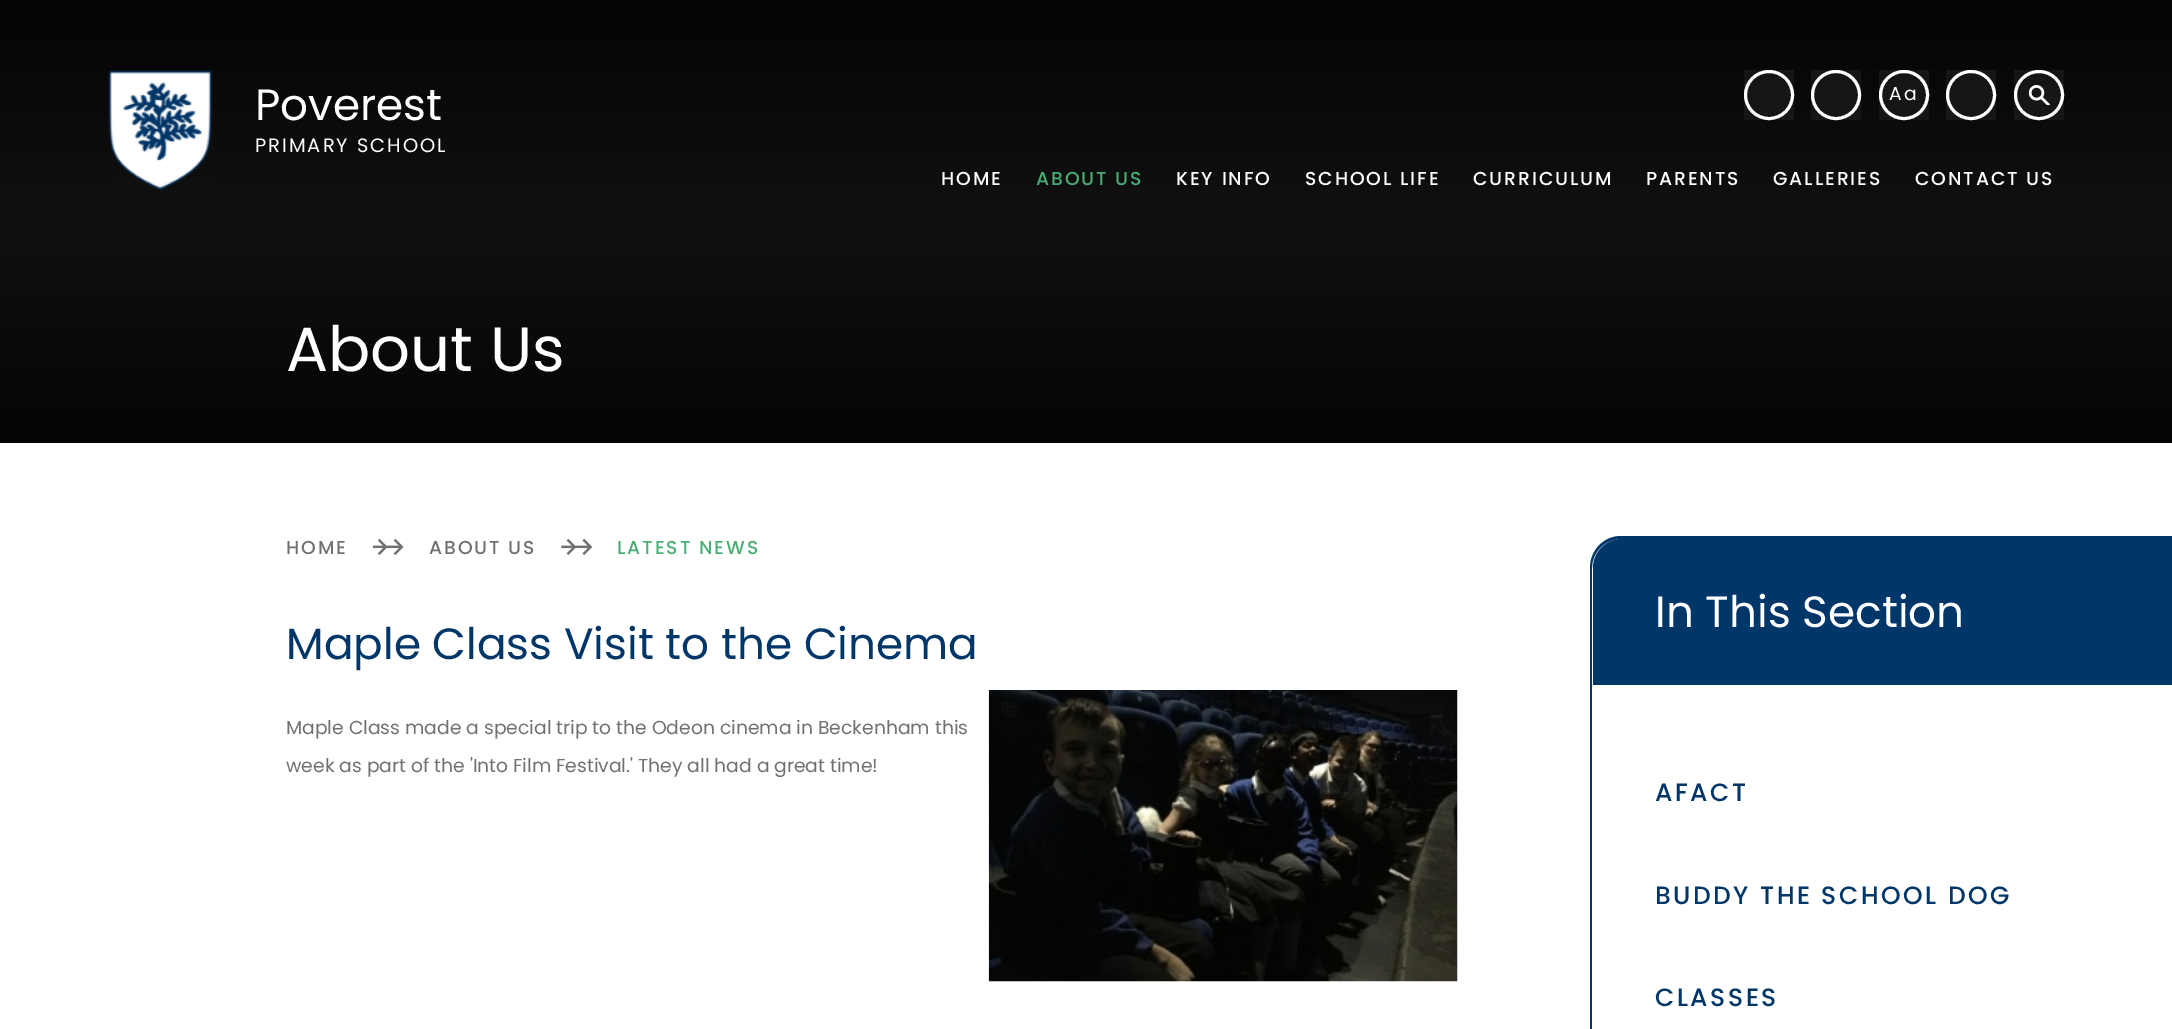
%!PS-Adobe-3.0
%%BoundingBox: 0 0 2172 1029
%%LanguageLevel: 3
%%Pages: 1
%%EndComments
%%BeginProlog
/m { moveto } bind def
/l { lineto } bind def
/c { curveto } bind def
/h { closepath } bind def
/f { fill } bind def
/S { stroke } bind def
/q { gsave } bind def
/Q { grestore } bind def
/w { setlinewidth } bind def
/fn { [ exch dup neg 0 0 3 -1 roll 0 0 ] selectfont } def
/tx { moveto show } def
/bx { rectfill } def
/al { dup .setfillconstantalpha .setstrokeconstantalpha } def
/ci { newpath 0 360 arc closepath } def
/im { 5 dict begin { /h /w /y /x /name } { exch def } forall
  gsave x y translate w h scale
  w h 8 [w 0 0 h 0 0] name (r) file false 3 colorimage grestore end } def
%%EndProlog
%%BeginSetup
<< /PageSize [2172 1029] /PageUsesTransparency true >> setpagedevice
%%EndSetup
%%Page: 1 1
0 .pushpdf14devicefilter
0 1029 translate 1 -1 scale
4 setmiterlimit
1 setgray
0 0 2172 1029 bx
q 0 0 m 2172 0 l 2172 443 l 0 443 l h clip newpath
<< /ShadingType 2 /ColorSpace /DeviceRGB /Coords [1086 0 1086 443] /Extend [true true] /Function << /FunctionType 3 /Domain [0 1] /Functions [<< /FunctionType 2 /Domain [0 1] /C0 [0.016 0.016 0.016] /C1 [0.067 0.067 0.067] /N 1 >> << /FunctionType 2 /Domain [0 1] /C0 [0.067 0.067 0.067] /C1 [0.016 0.016 0.016] /N 1 >>] /Bounds [0.5] /Encode [0 1 0 1] >> >> shfill Q
(image0.raw) 108 70 105 120 im
/Poppins-Regular 43.75 fn
(Poverest) 255 120 tx
/Poppins-Regular 19.4 fn
255 152 m 2 0 (PRIMARY SCHOOL) ashow
0.05 al
1744 70 50 50 bx
1 al
3 w
1769 95 23.5 ci S
0.05 al
1811 70 50 50 bx
1 al
1836 95 23.5 ci S
0.05 al
1879 70 50 50 bx
1 al
1904 95 23.5 ci S
/Poppins-Regular 18.75 fn
1889 100 m 1.9 0 (Aa) ashow
0.05 al
1946 70 50 50 bx
1 al
1971 95 23.5 ci S
0.05 al
2014 70 50 50 bx
1 al
2039 95 23.5 ci S
(image1.raw) 2029 85 21 20 im
/Poppins-Medium 18.75 fn
941 185 m 1.9 0 (HOME) ashow
0.29 0.678 0.455 setrgbcolor
1036 185 m 1.9 0 (ABOUT US) ashow
1 setgray
1176 185 m 1.9 0 (KEY INFO) ashow
1305 185 m 1.9 0 (SCHOOL LIFE) ashow
1473 185 m 1.9 0 (CURRICULUM) ashow
1646 185 m 1.9 0 (PARENTS) ashow
1773 185 m 1.9 0 (GALLERIES) ashow
1915 185 m 1.9 0 (CONTACT US) ashow
/Poppins-Regular 62.5 fn
(About Us) 286 371 tx
/Poppins-Medium 18.75 fn
0.443 setgray
286 554 m 1.9 0 (HOME) ashow
(image2.raw) 373 539 31 16 im
429 554 m 1.9 0 (ABOUT US) ashow
(image3.raw) 561 539 31 16 im
0.29 0.678 0.455 setrgbcolor
617 554 m 1.9 0 (LATEST NEWS) ashow
/Poppins-Regular 43.75 fn
0.004 0.212 0.408 setrgbcolor
(Maple Class Visit to the Cinema) 286 659 tx
/Poppins-Regular 18.75 fn
0.443 setgray
(Maple Class made a special trip to the Odeon cinema in Beckenham this) 286 734 tx
(week as part of the 'Into Film Festival.' They all had a great time!) 286 772 tx
(image4.raw) 988 690 470 292 im
0.004 0.212 0.408 setrgbcolor
1621 536 m 2172 536 l 2172 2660 l 1621 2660 l 1604 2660 1590 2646 1590 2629 c 1590 568 l 1590 550 1604 536 1621 536 c h 1621 539 m 2172 539 l 2172 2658 l 1621 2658 l 1605 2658 1592 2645 1592 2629 c 1592 568 l 1592 552 1605 539 1621 539 c h eofill
1622 539 m 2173 539 l 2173 685 l 1593 685 l 1593 568 l 1593 552 1606 539 1622 539 c h f
/Poppins-Regular 43.75 fn
1 setgray
(In This Section) 1655 627 tx
/Poppins-Medium 25 fn
0.004 0.212 0.408 setrgbcolor
1655 801 m 2.5 0 (AFACT) ashow
1655 904 m 2.5 0 (BUDDY THE SCHOOL DOG) ashow
1655 1006 m 2.5 0 (CLASSES) ashow
.poppdf14devicefilter showpage
%%EOF
